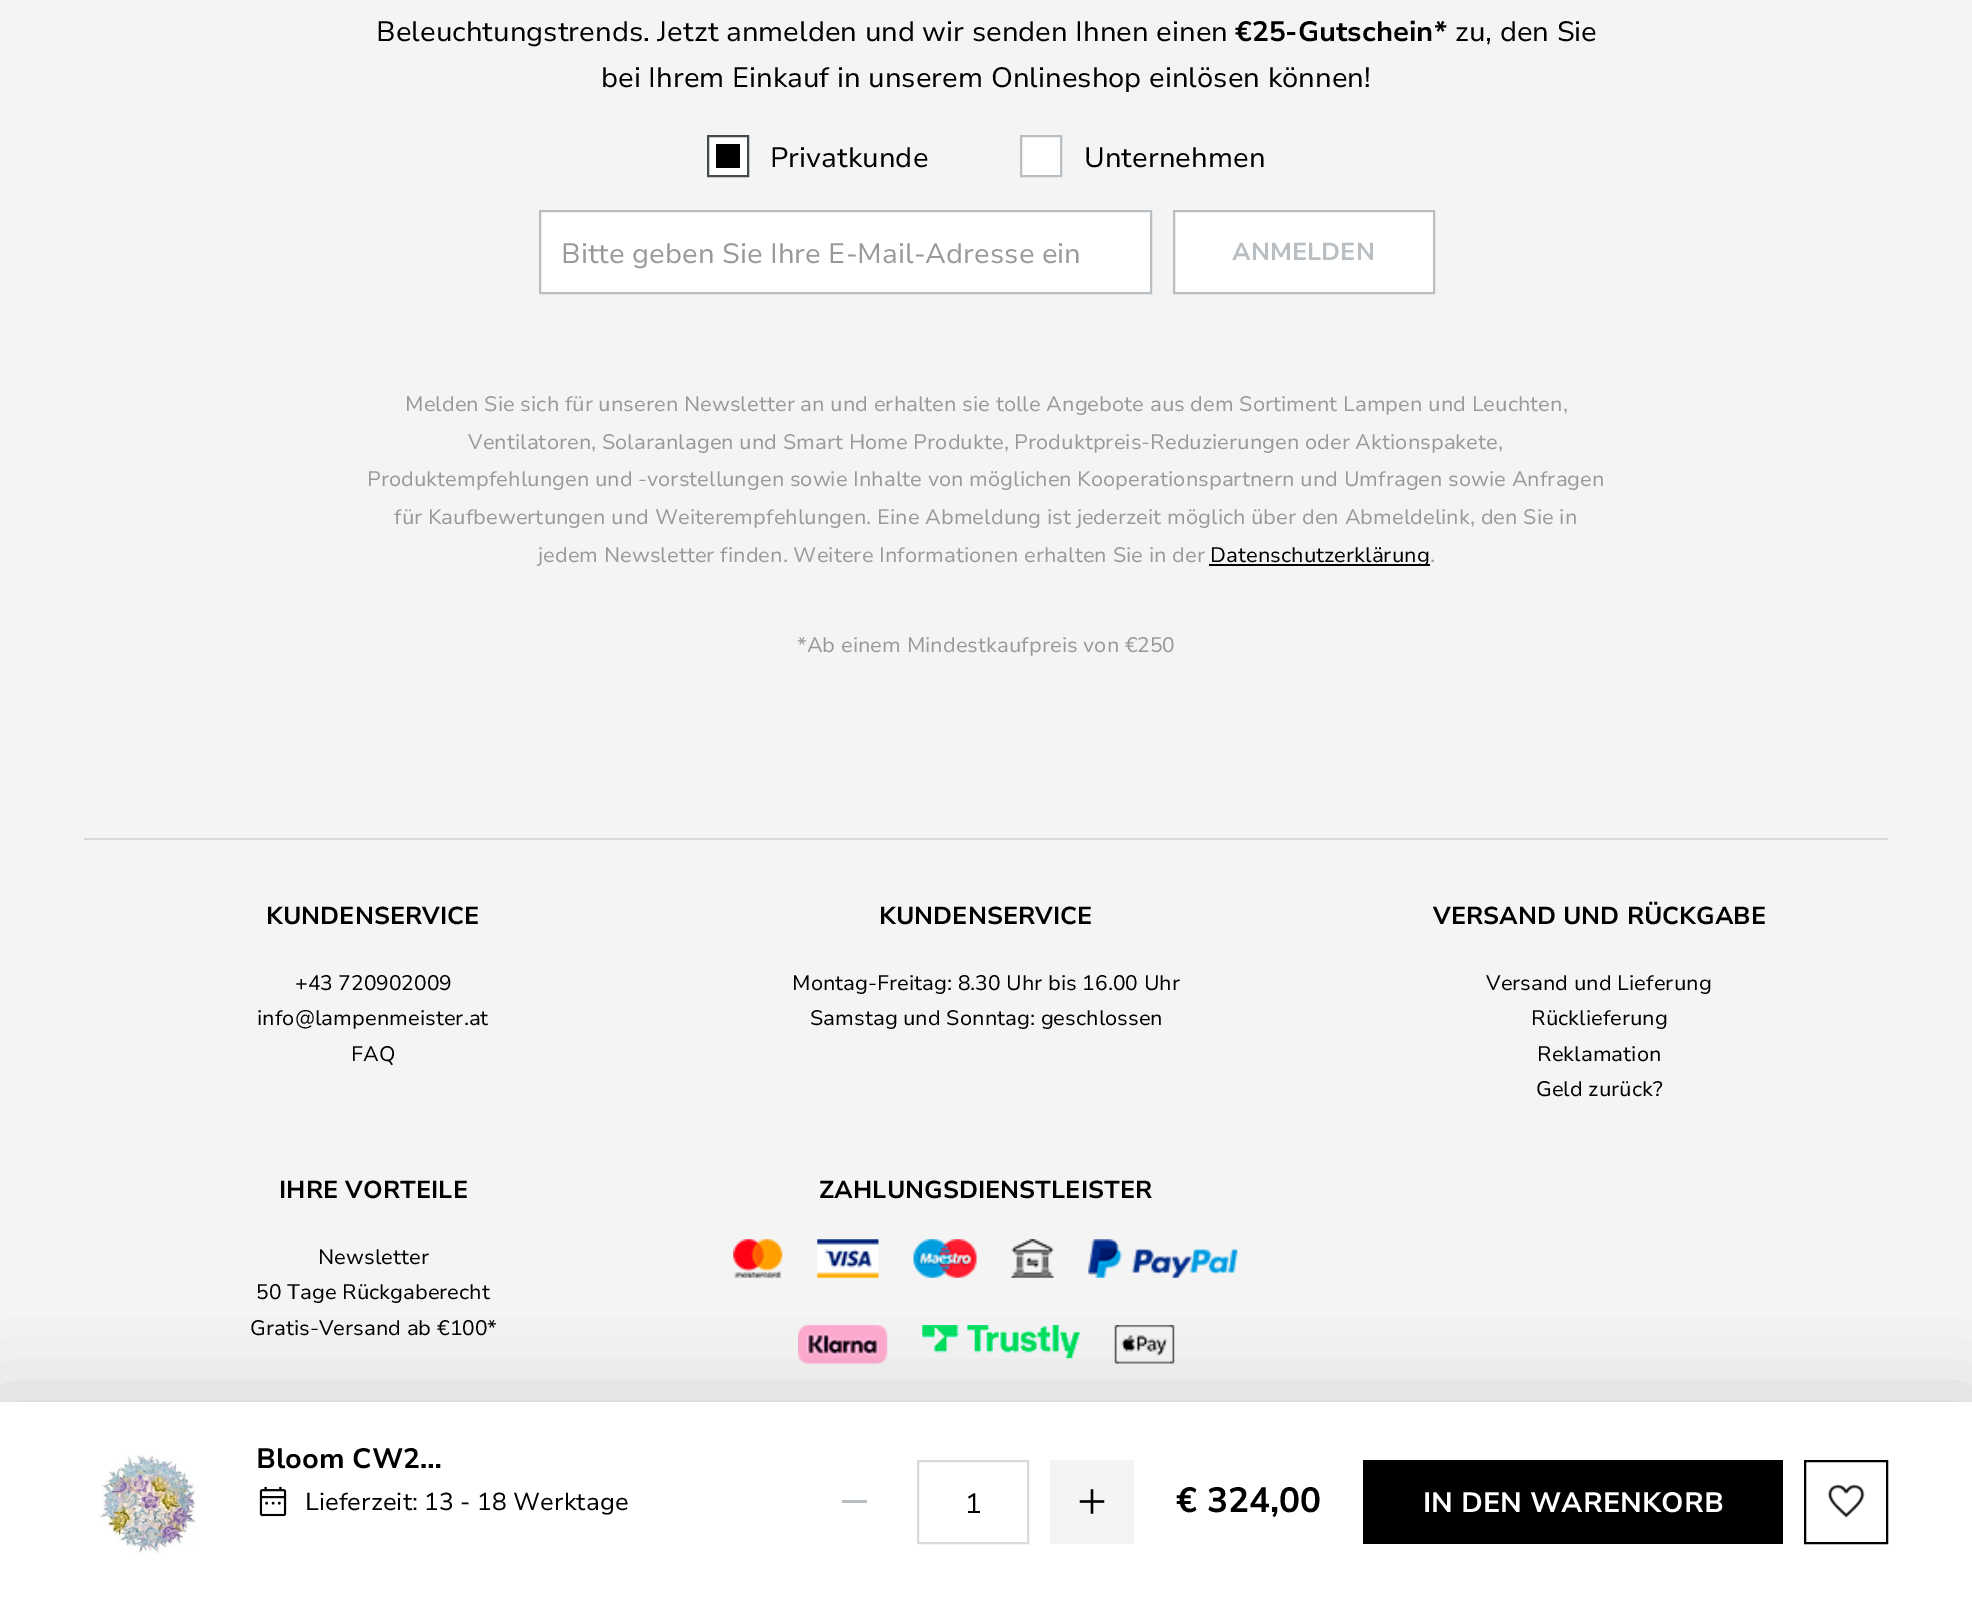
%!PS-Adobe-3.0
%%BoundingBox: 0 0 1972 1601
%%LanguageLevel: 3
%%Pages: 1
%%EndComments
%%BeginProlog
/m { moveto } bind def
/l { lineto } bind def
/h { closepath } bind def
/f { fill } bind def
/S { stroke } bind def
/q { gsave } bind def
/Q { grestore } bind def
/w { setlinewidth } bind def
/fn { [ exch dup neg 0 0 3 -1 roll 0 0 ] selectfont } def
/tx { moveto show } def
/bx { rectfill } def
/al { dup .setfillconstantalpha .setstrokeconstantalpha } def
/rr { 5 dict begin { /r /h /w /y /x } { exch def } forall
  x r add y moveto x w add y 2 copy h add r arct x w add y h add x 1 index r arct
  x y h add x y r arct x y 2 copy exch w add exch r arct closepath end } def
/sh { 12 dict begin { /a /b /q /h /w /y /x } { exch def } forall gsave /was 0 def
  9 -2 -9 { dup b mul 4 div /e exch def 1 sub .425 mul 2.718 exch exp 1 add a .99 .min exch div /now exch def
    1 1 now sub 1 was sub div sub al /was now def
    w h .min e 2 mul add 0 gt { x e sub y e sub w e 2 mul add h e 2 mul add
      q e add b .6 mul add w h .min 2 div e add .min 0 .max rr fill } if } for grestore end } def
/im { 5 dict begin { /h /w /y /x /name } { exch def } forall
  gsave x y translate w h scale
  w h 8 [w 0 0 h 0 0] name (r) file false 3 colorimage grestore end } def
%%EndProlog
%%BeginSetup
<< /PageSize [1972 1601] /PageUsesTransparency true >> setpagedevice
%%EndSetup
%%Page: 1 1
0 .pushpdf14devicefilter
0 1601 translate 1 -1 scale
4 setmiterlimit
0.957 setgray
0 0 1972 1601 bx
/NunitoSans-Regular 28 fn
0 setgray
(Beleuchtungstrends. Jetzt anmelden und wir senden Ihnen einen) 376 41 tx
/NunitoSans-Bold 28 fn
(€25-Gutschein*) 1235 41 tx
/NunitoSans-Regular 28 fn
(zu, den Sie) 1455 41 tx
(bei Ihrem Einkauf in unserem Onlineshop einlösen können!) 601 87 tx
1 setgray
708 136 m 748 136 l 748 176 l 708 176 l h q f Q
0.263 0.294 0.31 setrgbcolor
2 w
S
0 setgray
716 144 24 24 bx
(Privatkunde) 770 167 tx
1 setgray
1021 136 m 1061 136 l 1061 176 l 1021 176 l h q f Q
0.725 0.745 0.761 setrgbcolor
S
0 setgray
(Unternehmen) 1084 167 tx
1 setgray
540 211 m 1151 211 l 1151 293 l 540 293 l h q f Q
0.725 0.745 0.761 setrgbcolor
S
0.6 setgray
(Bitte geben Sie Ihre E-Mail-Adresse ein) 561 263 tx
1 setgray
1174 211 m 1434 211 l 1434 293 l 1174 293 l h q f Q
0.725 0.745 0.761 setrgbcolor
S
/NunitoSans-Bold 24.5 fn
(ANMELDEN) 1232 260 tx
/NunitoSans-Regular 21 fn
0.6 setgray
(Melden Sie sich für unseren Newsletter an und erhalten sie tolle Angebote aus dem Sortiment Lampen und Leuchten,) 405 411 tx
(Ventilatoren, Solaranlagen und Smart Home Produkte, Produktpreis-Reduzierungen oder Aktionspakete,) 468 449 tx
(Produktempfehlungen und -vorstellungen sowie Inhalte von möglichen Kooperationspartnern und Umfragen sowie Anfragen) 367 486 tx
(für Kaufbewertungen und Weiterempfehlungen. Eine Abmeldung ist jederzeit möglich über den Abmeldelink, den Sie in) 394 524 tx
(jedem Newsletter finden. Weitere Informationen erhalten Sie in der) 538 562 tx
0 setgray
1209 564 221 2 bx
(Datenschutzerklärung) 1210 562 tx
0.6 setgray
(.) 1430 562 tx
(*Ab einem Mindestkaufpreis von €250) 797 652 tx
0.843 0.859 0.867 setrgbcolor
84 838 1804 2 bx
/NunitoSans-Bold 24.5 fn
0 setgray
(KUNDENSERVICE) 266 924 tx
/NunitoSans-Regular 21 fn
(+43 720902009) 295 990 tx
(info@lampenmeister.at) 257 1025 tx
(FAQ) 351 1061 tx
/NunitoSans-Bold 24.5 fn
(KUNDENSERVICE) 879 924 tx
/NunitoSans-Regular 21 fn
(Montag-Freitag: 8.30 Uhr bis 16.00 Uhr) 792 990 tx
(Samstag und Sonntag: geschlossen) 810 1025 tx
/NunitoSans-Bold 24.5 fn
(VERSAND UND RÜCKGABE) 1433 924 tx
/NunitoSans-Regular 21 fn
(Versand und Lieferung) 1486 990 tx
(Rücklieferung) 1531 1025 tx
(Reklamation) 1537 1061 tx
(Geld zurück?) 1536 1096 tx
/NunitoSans-Bold 24.5 fn
(IHRE VORTEILE) 279 1198 tx
/NunitoSans-Regular 21 fn
(Newsletter) 318 1264 tx
(50 Tage Rückgaberecht) 256 1299 tx
(Gratis-Versand ab €100*) 250 1335 tx
/NunitoSans-Bold 24.5 fn
(ZAHLUNGSDIENSTLEISTER) 819 1198 tx
(image0.raw) 733 1239 50 39 im
(image1.raw) 817 1239 62 39 im
(image2.raw) 913 1239 64 39 im
(image3.raw) 1011 1239 43 39 im
(image4.raw) 1088 1239 150 39 im
(image5.raw) 798 1325 90 39 im
(image6.raw) 922 1325 158 34 im
(image7.raw) 1114 1325 61 39 im
0 1411 1972 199 0 42 0.2 sh
1 setgray
0 1402 1972 199 bx
(image8.raw) 99 1454 97 100 im
/NunitoSans-Bold 28 fn
0 setgray
(Bloom CW2…) 256 1468 tx
(image9.raw) 259 1486 28 31 im
/NunitoSans-Regular 24.5 fn
(Lieferzeit: 13 - 18 Werktage) 305 1510 tx
0.725 0.745 0.761 setrgbcolor
842 1500 25 3 bx
0.843 0.859 0.867 setrgbcolor
918 1461 110 82 rectstroke
/NunitoSans-Regular 28 fn
0 setgray
(1) 965 1513 tx
0.957 setgray
1050 1460 84 84 bx
(image10.raw) 1079 1489 26 25 im
/NunitoSans-Bold 35 fn
0 setgray
(€ 324,00) 1176 1512 tx
1363 1460 420 84 bx
/NunitoSans-Bold 28 fn
1 setgray
(IN DEN WARENKORB) 1423 1512 tx
0 setgray
1805 1461 82 82 rectstroke
(image11.raw) 1828 1484 37 34 im
.poppdf14devicefilter showpage
%%EOF
